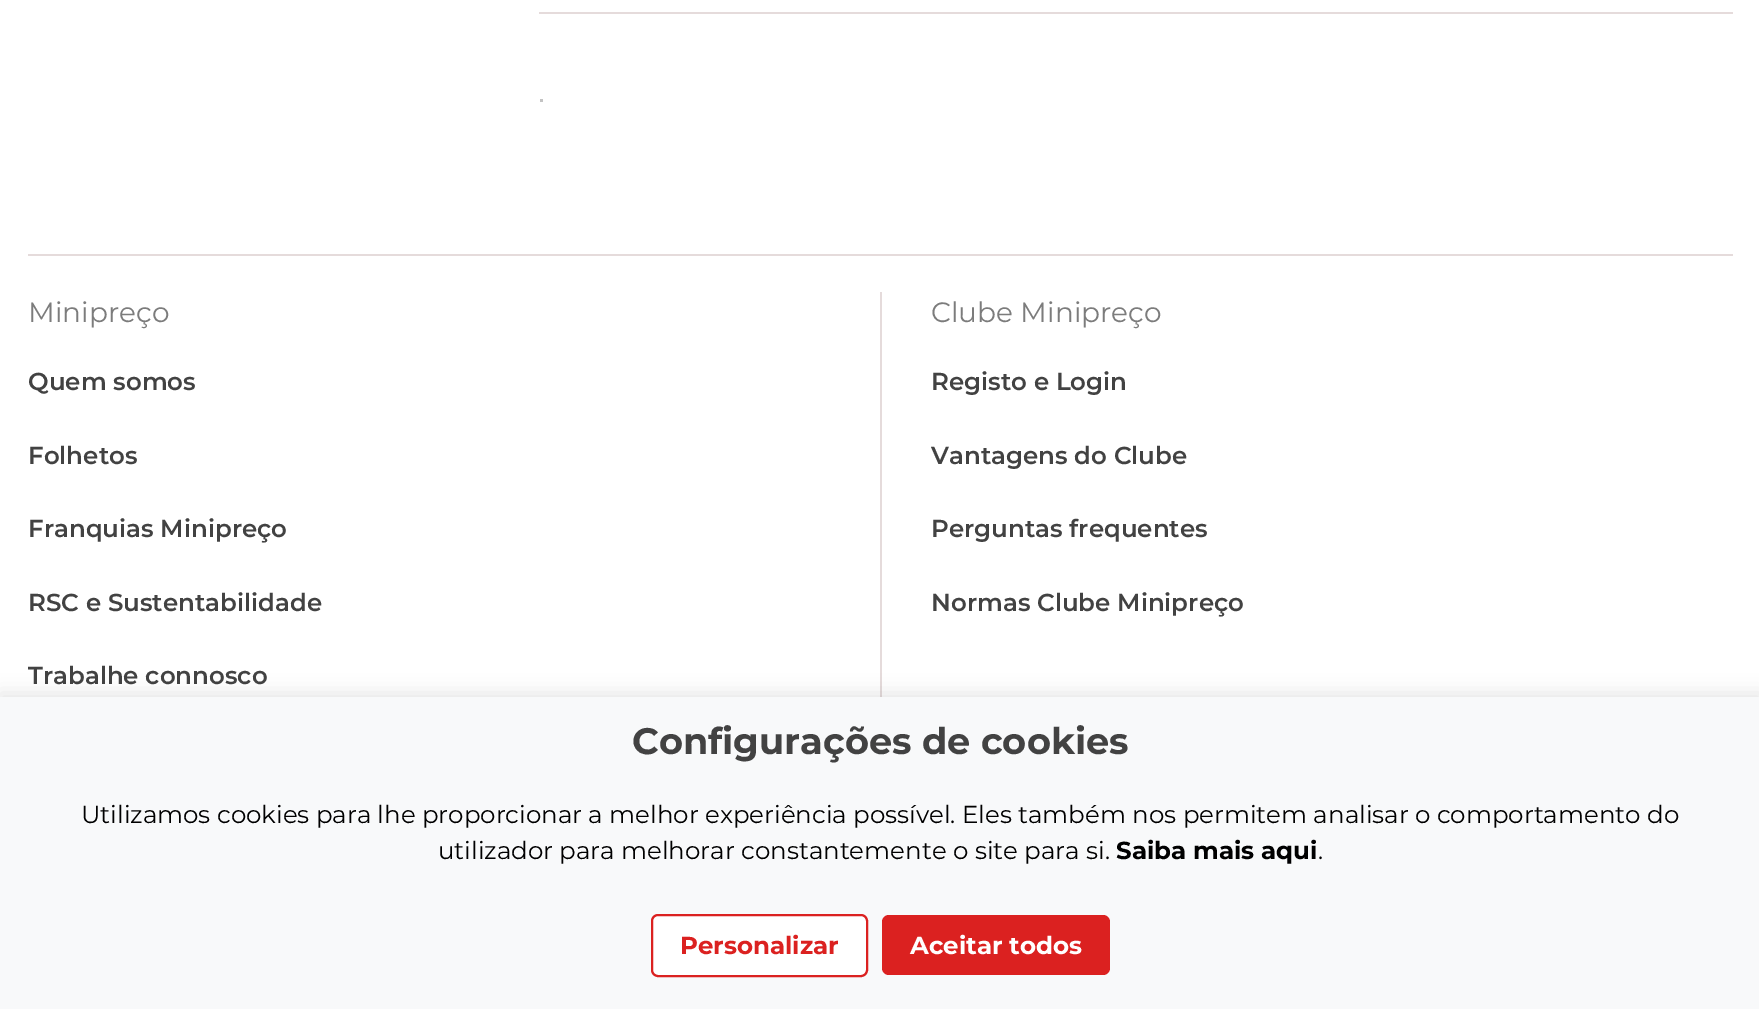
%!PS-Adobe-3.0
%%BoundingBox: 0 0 1759 1009
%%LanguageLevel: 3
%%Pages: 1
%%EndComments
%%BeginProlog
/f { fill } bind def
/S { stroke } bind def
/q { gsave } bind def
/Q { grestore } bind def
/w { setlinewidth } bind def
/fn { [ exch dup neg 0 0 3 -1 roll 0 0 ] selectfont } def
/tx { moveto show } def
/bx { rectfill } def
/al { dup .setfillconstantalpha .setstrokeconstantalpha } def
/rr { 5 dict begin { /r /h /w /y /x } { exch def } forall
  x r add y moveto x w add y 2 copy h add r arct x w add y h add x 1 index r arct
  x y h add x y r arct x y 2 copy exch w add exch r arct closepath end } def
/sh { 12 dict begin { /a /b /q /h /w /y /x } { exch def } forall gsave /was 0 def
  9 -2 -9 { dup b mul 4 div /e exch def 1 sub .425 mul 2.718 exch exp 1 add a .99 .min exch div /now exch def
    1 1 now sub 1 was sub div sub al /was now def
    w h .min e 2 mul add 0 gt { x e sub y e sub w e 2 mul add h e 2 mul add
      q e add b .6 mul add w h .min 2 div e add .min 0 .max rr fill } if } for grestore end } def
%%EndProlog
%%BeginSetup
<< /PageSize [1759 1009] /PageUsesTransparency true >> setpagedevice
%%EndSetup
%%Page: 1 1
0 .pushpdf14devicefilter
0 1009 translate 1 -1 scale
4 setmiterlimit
1 setgray
0 0 1759 1009 bx
0.898 0.859 0.859 setrgbcolor
539 12 1194 2 bx
0.765 setgray
540 99 3 3 bx
0.898 0.859 0.859 setrgbcolor
28 254 1705 2 bx
/Montserrat-Regular 28 fn
0.486 setgray
(Minipreço) 28 322 tx
/Montserrat-SemiBold 24.5 fn
0.259 setgray
(Quem somos) 28 390 tx
(Folhetos) 28 464 tx
(Franquias Minipreço) 28 537 tx
(RSC e Sustentabilidade) 28 611 tx
(Trabalhe connosco) 28 684 tx
0.898 0.859 0.859 setrgbcolor
880 292 2 405 bx
/Montserrat-Regular 28 fn
0.486 setgray
(Clube Minipreço) 931 322 tx
/Montserrat-SemiBold 24.5 fn
0.259 setgray
(Registo e Login) 931 390 tx
(Vantagens do Clube) 931 464 tx
(Perguntas frequentes) 931 537 tx
(Normas Clube Minipreço) 931 611 tx
0 setgray
0 693 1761 313 0 9 0.1 sh
0.973 0.976 0.98 setrgbcolor
0 697 1759 312 bx
/Montserrat-Bold 36.75 fn
0.259 setgray
(Configurações de cookies) 632 754 tx
/Montserrat-Regular 24.5 fn
0 setgray
(Utilizamos cookies para lhe proporcionar a melhor experiência possível. Eles também nos permitem analisar o comportamento do) 81 823 tx
(utilizador para melhorar constantemente o site para si.) 438 859 tx
/Montserrat-Bold 24.5 fn
(Saiba mais aqui) 1116 859 tx
/Montserrat-Regular 24.5 fn
(.) 1318 859 tx
1 setgray
652 915 215 61 6 rr q f Q
0.859 0.129 0.125 setrgbcolor
2 w
S
/Montserrat-Bold 24.5 fn
(Personalizar) 680 954 tx
882 915 228 60 7 rr f
1 setgray
(Aceitar todos) 910 954 tx
.poppdf14devicefilter showpage
%%EOF
